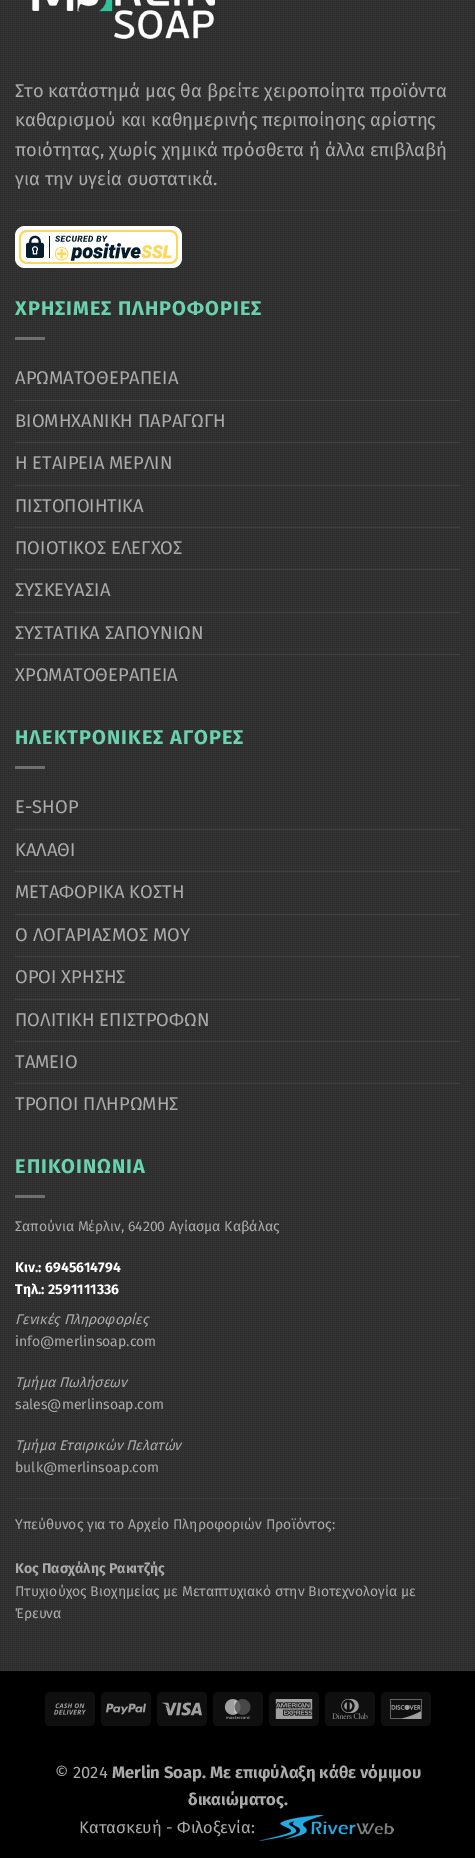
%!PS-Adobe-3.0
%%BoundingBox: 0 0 475 1858
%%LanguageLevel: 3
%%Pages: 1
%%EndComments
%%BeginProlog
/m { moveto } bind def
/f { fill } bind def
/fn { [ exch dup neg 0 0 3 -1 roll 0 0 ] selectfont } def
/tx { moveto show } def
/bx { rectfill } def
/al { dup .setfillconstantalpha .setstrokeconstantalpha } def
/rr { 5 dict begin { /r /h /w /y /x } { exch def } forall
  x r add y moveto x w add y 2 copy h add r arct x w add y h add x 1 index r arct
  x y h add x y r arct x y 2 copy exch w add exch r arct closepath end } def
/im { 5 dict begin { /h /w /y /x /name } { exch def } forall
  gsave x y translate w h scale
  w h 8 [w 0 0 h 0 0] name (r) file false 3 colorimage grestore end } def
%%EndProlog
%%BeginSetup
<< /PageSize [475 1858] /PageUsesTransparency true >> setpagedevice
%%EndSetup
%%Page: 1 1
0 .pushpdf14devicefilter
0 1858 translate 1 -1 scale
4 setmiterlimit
0.2 setgray
0 0 475 1858 bx
(image0.raw) 0 1 475 1669 im
(image1.raw) 32 0 183 39 im
/FiraSans-Regular 18.4 fn
0.667 setgray
(Στο κατάστημά μας θα βρείτε χειροποίητα προϊόντα) 15 97 tx
(καθαρισμού και καθημερινής περιποίησης αρίστης) 15 126 tx
(ποιότητας, χωρίς χημικά πρόσθετα ή άλλα επιβλαβή) 15 156 tx
(για την υγεία συστατικά.) 15 185 tx
0.231 setgray
15 210 445 1 bx
(image2.raw) 15 226 167 42 im
/FiraSans-Bold 20 fn
0.412 0.827 0.682 setrgbcolor
15 315 m 1 0 (ΧΡΗΣΙΜΕΣ ΠΛΗΡΟΦΟΡΙΕΣ) ashow
0.3 al
1 setgray
15 337 30 3 bx
/FiraSans-Regular 18.4 fn
1 al
0.667 setgray
(ΑΡΩΜΑΤΟΘΕΡΑΠΕΙΑ) 15 384 tx
0.263 setgray
15 400 445 1 bx
0.667 setgray
(ΒΙΟΜΗΧΑΝΙΚΗ ΠΑΡΑΓΩΓΗ) 15 427 tx
0.263 setgray
15 442 445 1 bx
0.667 setgray
(Η ΕΤΑΙΡΕΙΑ ΜΕΡΛΙΝ) 15 469 tx
0.08 al
1 setgray
15 485 445 1 bx
1 al
0.667 setgray
(ΠΙΣΤΟΠΟΙΗΤΙΚΑ) 15 512 tx
0.08 al
1 setgray
15 527 445 1 bx
1 al
0.667 setgray
(ΠΟΙΟΤΙΚΟΣ ΕΛΕΓΧΟΣ) 15 554 tx
0.08 al
1 setgray
15 569 445 1 bx
1 al
0.667 setgray
(ΣΥΣΚΕΥΑΣΙΑ) 15 596 tx
0.263 setgray
15 612 445 1 bx
0.667 setgray
(ΣΥΣΤΑΤΙΚΑ ΣΑΠΟΥΝΙΩΝ) 15 639 tx
0.263 setgray
15 654 445 1 bx
0.667 setgray
(ΧΡΩΜΑΤΟΘΕΡΑΠΕΙΑ) 15 681 tx
/FiraSans-Bold 20 fn
0.412 0.827 0.682 setrgbcolor
15 744 m 1 0 (ΗΛΕΚΤΡΟΝΙΚΕΣ ΑΓΟΡΕΣ) ashow
0.3 al
1 setgray
15 766 30 3 bx
/FiraSans-Regular 18.4 fn
1 al
0.667 setgray
(E-SHOP) 15 813 tx
0.08 al
1 setgray
15 829 445 1 bx
1 al
0.667 setgray
(ΚΑΛΑΘΙ) 15 856 tx
0.08 al
1 setgray
15 871 445 1 bx
1 al
0.667 setgray
(ΜΕΤΑΦΟΡΙΚΑ ΚΟΣΤΗ) 15 898 tx
0.263 setgray
15 914 445 1 bx
0.667 setgray
(Ο ΛΟΓΑΡΙΑΣΜΟΣ ΜΟΥ) 15 941 tx
0.263 setgray
15 956 445 1 bx
0.667 setgray
(ΟΡΟΙ ΧΡΗΣΗΣ) 15 983 tx
0.08 al
1 setgray
15 999 445 1 bx
1 al
0.667 setgray
(ΠΟΛΙΤΙΚΗ ΕΠΙΣΤΡΟΦΩΝ) 15 1026 tx
0.08 al
1 setgray
15 1041 445 1 bx
1 al
0.667 setgray
(ΤΑΜΕΙΟ) 15 1068 tx
0.08 al
1 setgray
15 1083 445 1 bx
1 al
0.667 setgray
(ΤΡΟΠΟΙ ΠΛΗΡΩΜΗΣ) 15 1110 tx
/FiraSans-Bold 20 fn
0.412 0.827 0.682 setrgbcolor
15 1173 m 1 0 (ΕΠΙΚΟΙΝΩΝΙΑ) ashow
0.3 al
1 setgray
15 1195 30 3 bx
/FiraSans-Regular 14 fn
1 al
0.667 setgray
(Σαπούνια Μέρλιν, 64200 Αγίασμα Καβάλας) 15 1231 tx
/FiraSans-Bold 14 fn
1 setgray
(Κιν.: 6945614794) 15 1272 tx
(Τηλ.: 2591111336) 15 1294 tx
/FiraSans-Italic 14 fn
0.667 setgray
(Γενικές Πληροφορίες) 15 1324 tx
/FiraSans-Regular 14 fn
(info@merlinsoap.com) 15 1346 tx
/FiraSans-Italic 14 fn
(Τμήμα Πωλήσεων) 15 1387 tx
/FiraSans-Regular 14 fn
(sales@merlinsoap.com) 15 1409 tx
/FiraSans-Italic 14 fn
(Τμήμα Εταιρικών Πελατών) 15 1450 tx
/FiraSans-Regular 14 fn
(bulk@merlinsoap.com) 15 1472 tx
0.231 setgray
15 1498 445 1 bx
0.667 setgray
(Υπεύθυνος για το Αρχείο Πληροφοριών Προϊόντος:) 15 1529 tx
/FiraSans-Bold 14 fn
(Κος Πασχάλης Ρακιτζής) 15 1573 tx
/FiraSans-Regular 14 fn
(Πτυχιούχος Βιοχημείας με Μεταπτυχιακό στην Βιοτεχνολογία με) 15 1596 tx
(Έρευνα) 15 1618 tx
0 setgray
0 1671 475 187 bx
0.059 setgray
45 1692 50 34 5 rr f
(image3.raw) 54 1703 32 12 im
101 1692 50 34 5 rr f
(image4.raw) 106 1703 40 12 im
157 1692 50 34 5 rr f
(image5.raw) 162 1702 40 14 im
213 1692 50 34 5 rr f
(image6.raw) 224 1699 27 20 im
269 1692 50 34 5 rr f
(image7.raw) 275 1699 38 20 im
325 1692 50 34 5 rr f
(image8.raw) 332 1699 36 20 im
381 1692 50 34 5 rr f
(image9.raw) 390 1699 32 20 im
/FiraSans-Regular 16.6 fn
0.667 setgray
(© 2024) 55 1778 tx
/FiraSans-Bold 16.6 fn
(Merlin Soap. Με επιφύλαξη κάθε νόμιμου) 112 1778 tx
(δικαιώματος.) 188 1805 tx
/FiraSans-Regular 16.6 fn
(Κατασκευή - Φιλοξενία:) 79 1833 tx
(image10.raw) 259 1815 135 26 im
.poppdf14devicefilter showpage
%%EOF
